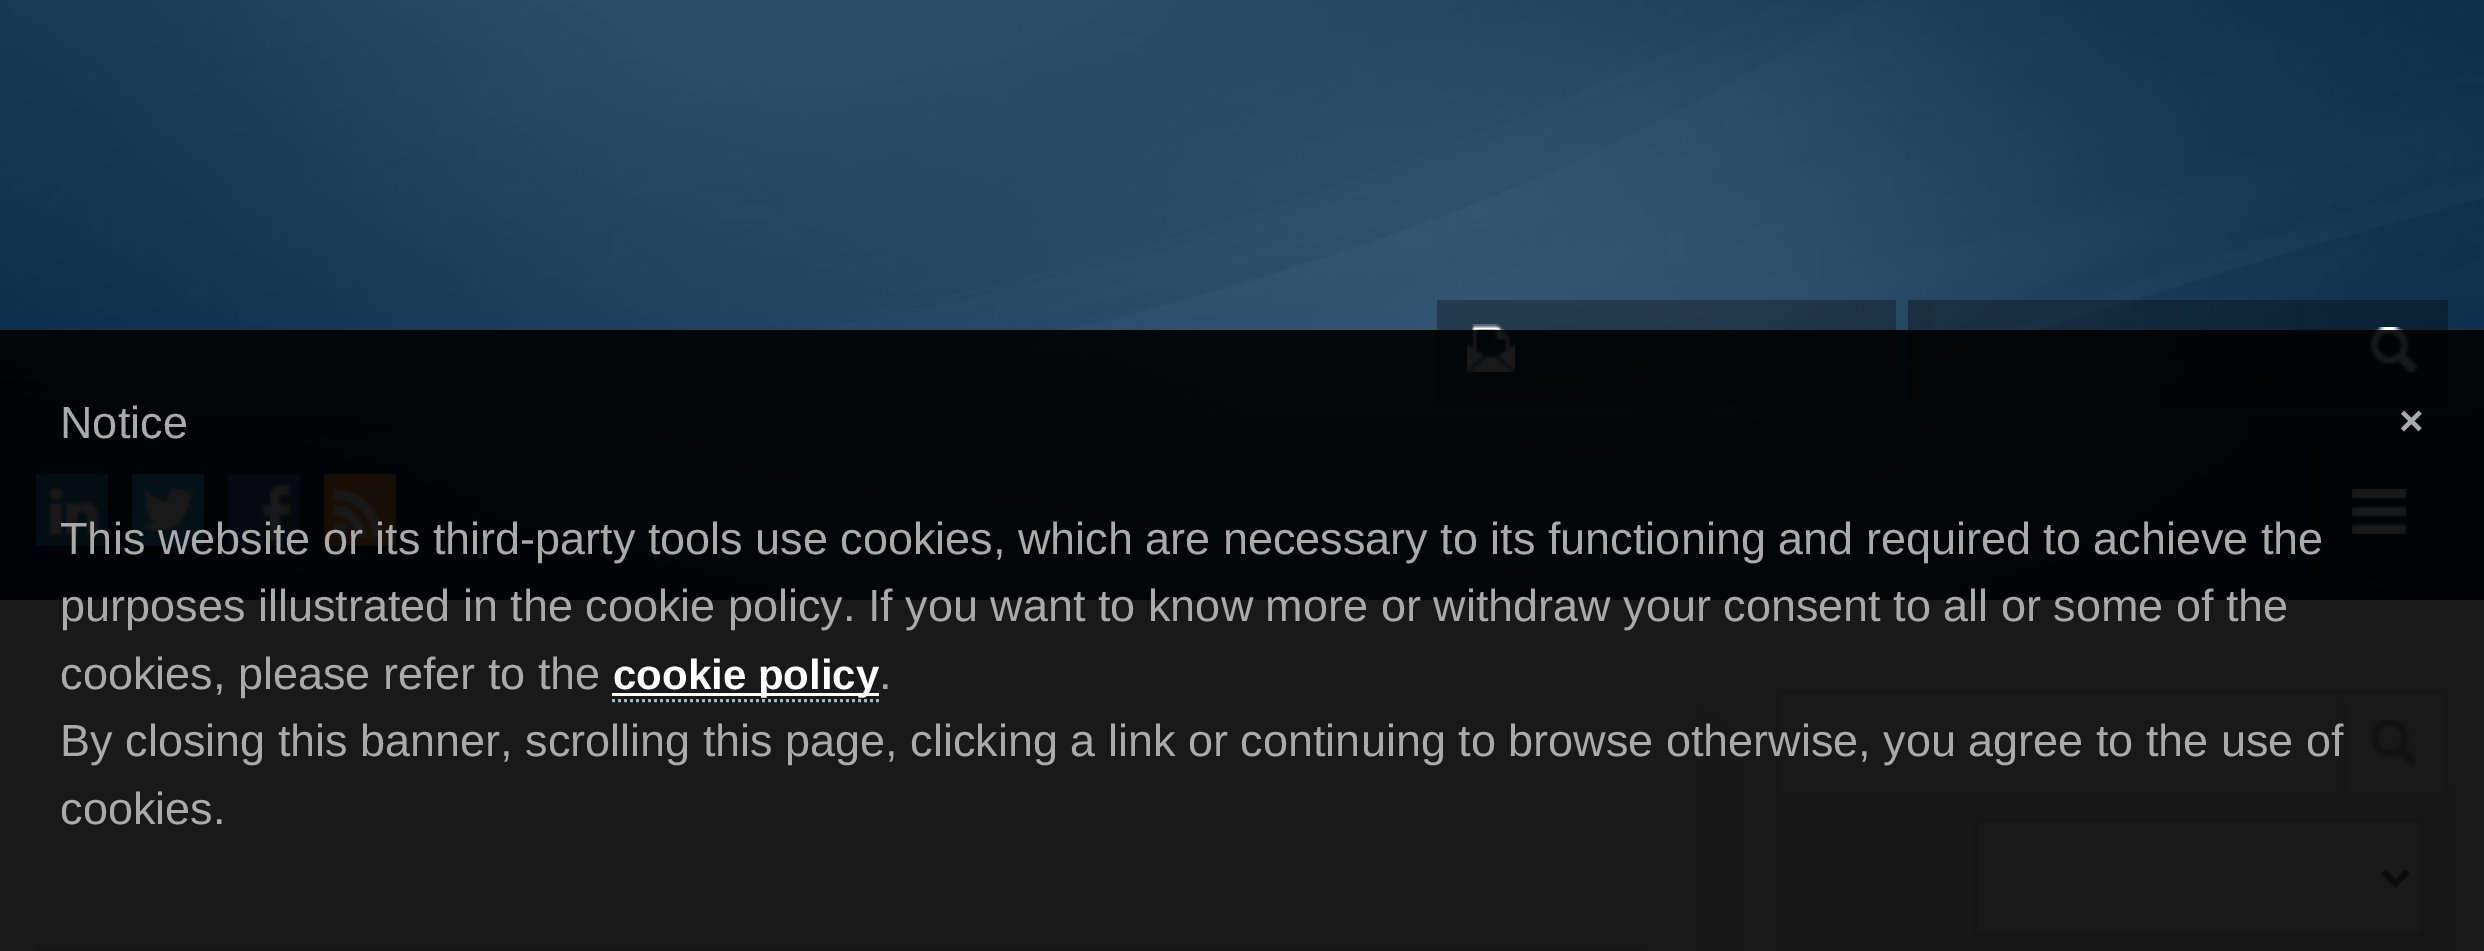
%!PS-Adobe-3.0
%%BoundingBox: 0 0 2484 951
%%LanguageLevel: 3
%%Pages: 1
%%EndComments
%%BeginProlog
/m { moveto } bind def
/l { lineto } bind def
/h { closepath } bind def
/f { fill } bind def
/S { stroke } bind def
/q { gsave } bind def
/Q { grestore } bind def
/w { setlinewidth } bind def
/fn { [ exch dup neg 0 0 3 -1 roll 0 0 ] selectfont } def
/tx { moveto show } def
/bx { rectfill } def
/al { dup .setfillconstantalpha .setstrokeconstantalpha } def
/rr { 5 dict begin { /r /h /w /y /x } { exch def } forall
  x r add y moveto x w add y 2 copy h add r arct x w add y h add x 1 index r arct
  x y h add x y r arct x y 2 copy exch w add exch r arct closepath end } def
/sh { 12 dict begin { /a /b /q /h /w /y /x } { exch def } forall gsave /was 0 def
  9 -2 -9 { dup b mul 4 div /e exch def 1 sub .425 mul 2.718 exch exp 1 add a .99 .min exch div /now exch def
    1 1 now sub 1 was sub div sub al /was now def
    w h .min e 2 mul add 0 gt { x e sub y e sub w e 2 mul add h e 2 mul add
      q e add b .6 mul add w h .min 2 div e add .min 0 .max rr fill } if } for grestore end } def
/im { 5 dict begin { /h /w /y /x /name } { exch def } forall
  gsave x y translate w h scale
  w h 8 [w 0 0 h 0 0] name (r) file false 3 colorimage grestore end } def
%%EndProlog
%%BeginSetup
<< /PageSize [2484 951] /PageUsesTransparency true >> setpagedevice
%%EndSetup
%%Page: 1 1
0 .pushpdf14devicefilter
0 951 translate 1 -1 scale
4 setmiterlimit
1 setgray
0 0 2484 951 bx
(image0.raw) 0 0 2484 600 im
0.3 al
0 setgray
1437 300 459 102 bx
1 al
(image1.raw) 1467 324 48 48 im
(image2.raw) 1908 300 27 102 im
0.3 al
1908 300 540 102 bx
1 al
(image3.raw) 2370 327 48 46 im
0.12 al
0 420 2484 180 bx
1 al
(image4.raw) 36 474 72 72 im
(image5.raw) 132 474 72 72 im
(image6.raw) 228 474 72 72 im
(image7.raw) 324 474 72 72 im
0.3 al
2310 441 138 138 9 rr f
1 al
(image8.raw) 2352 489 54 45 im
1626 720 90 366 45 30 0.07 sh
1 setgray
1594 697 107 254 bx
0.867 setgray
36 948 1605 3 bx
0.933 setgray
3 w
1777.5 691.5 669 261 rectstroke
(image9.raw) 2370 720 48 46 im
2343 699 3 93 bx
0 setgray
1782 798 666 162 0 9 0.05 sh
0.969 setgray
1779 798 666 153 bx
0.933 setgray
1779 795 666 3 bx
0.98 setgray
1975.5 820.5 m 2422.5 820.5 l 2422.5 934.5 l 1975.5 934.5 l h q f Q
0.867 setgray
S
0.467 setgray
6 w
2383.5 871.5 m 2395.5 883.5 l 2407.5 871.5 l S
0.9 al
0 setgray
0 330 2484 621 bx
/LiberationSans-Regular 45 fn
1 al
0.667 setgray
(Notice) 60 438 tx
(This website or its third-party tools use cookies, which are necessary to its functioning and required to achieve the) 60 554 tx
(purposes illustrated in the cookie policy. If you want to know more or withdraw your consent to all or some of the) 60 621 tx
(cookies, please refer to the) 60 689 tx
1 setgray
612 693 267 3 bx
/LiberationSans-Bold 42 fn
(cookie policy) 613 689 tx
0.639 0.722 0.773 setrgbcolor
3 w
[3 3] 0 setdash
612 700.5 m 879 700.5 l S
/LiberationSans-Regular 45 fn
0.667 setgray
(.) 879 689 tx
(By closing this banner, scrolling this page, clicking a link or continuing to browse otherwise, you agree to the use of) 60 756 tx
(cookies.) 60 824 tx
/LiberationSans-Bold 42 fn
(×) 2399 435 tx
.poppdf14devicefilter showpage
%%EOF
